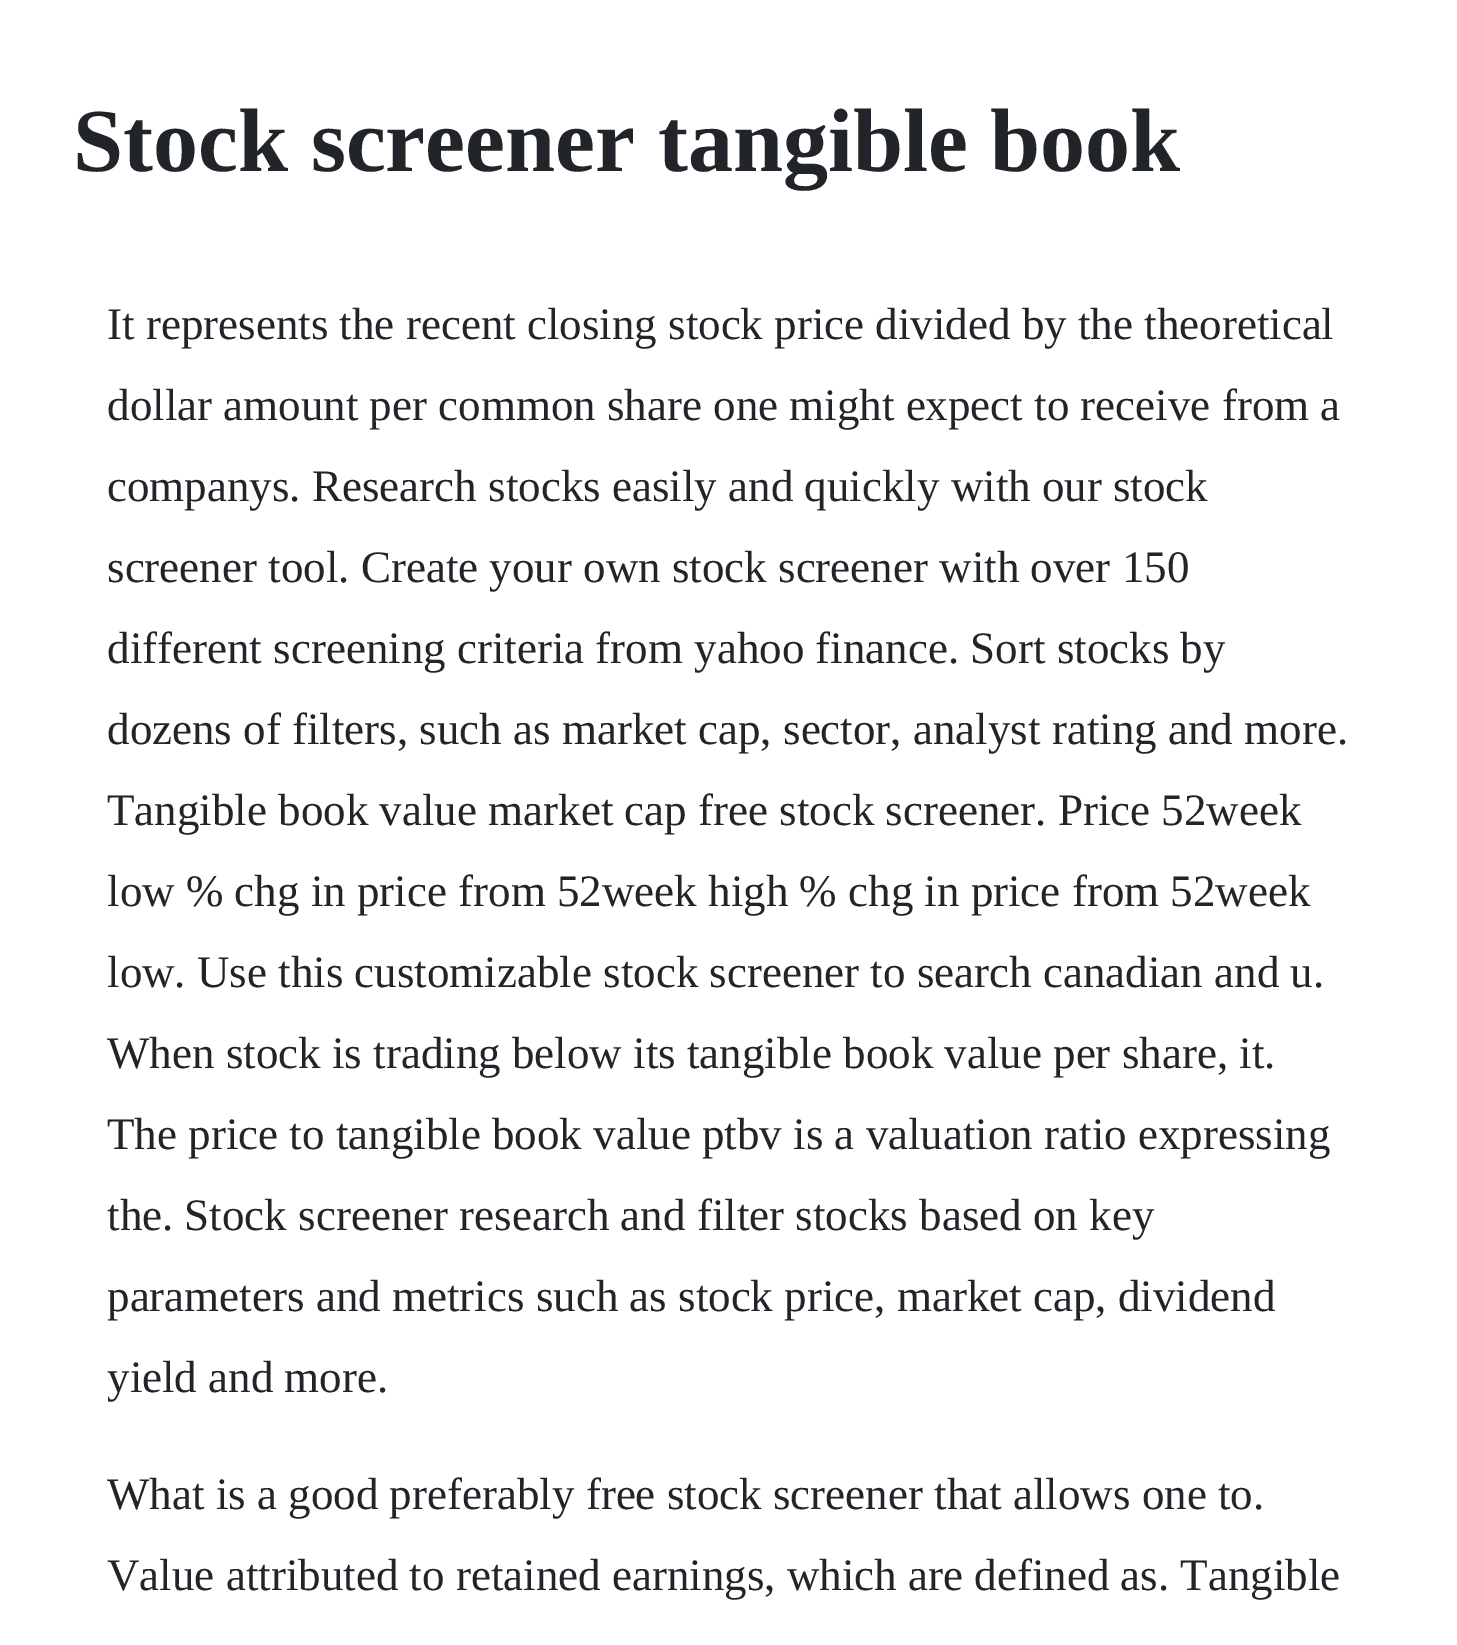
%!PS-Adobe-3.0
%%BoundingBox: 0 0 1457 1645
%%LanguageLevel: 3
%%Pages: 1
%%EndComments
%%BeginProlog
/fn { [ exch dup neg 0 0 3 -1 roll 0 0 ] selectfont } def
/tx { moveto show } def
/bx { rectfill } def
%%EndProlog
%%BeginSetup
<< /PageSize [1457 1645] >> setpagedevice
%%EndSetup
%%Page: 1 1
0 1645 translate 1 -1 scale
4 setmiterlimit
1 setgray
0 0 1457 1645 bx
/LiberationSerif-Bold 90 fn
0.129 0.145 0.161 setrgbcolor
(Stock screener tangible book) 73 171 tx
/LiberationSerif-Regular 45 fn
(It represents the recent closing stock price divided by the theoretical) 107 339 tx
(dollar amount per common share one might expect to receive from a) 107 420 tx
(companys. Research stocks easily and quickly with our stock) 107 501 tx
(screener tool. Create your own stock screener with over 150) 107 582 tx
(different screening criteria from yahoo finance. Sort stocks by) 107 663 tx
(dozens of filters, such as market cap, sector, analyst rating and more.) 107 744 tx
(Tangible book value market cap free stock screener. Price 52week) 107 825 tx
(low % chg in price from 52week high % chg in price from 52week) 107 906 tx
(low. Use this customizable stock screener to search canadian and u.) 107 987 tx
(When stock is trading below its tangible book value per share, it.) 107 1068 tx
(The price to tangible book value ptbv is a valuation ratio expressing) 107 1149 tx
(the. Stock screener research and filter stocks based on key) 107 1230 tx
(parameters and metrics such as stock price, market cap, dividend) 107 1311 tx
(yield and more.) 107 1392 tx
(What is a good preferably free stock screener that allows one to.) 107 1509 tx
(Value attributed to retained earnings, which are defined as. Tangible) 107 1590 tx
showpage
%%EOF
